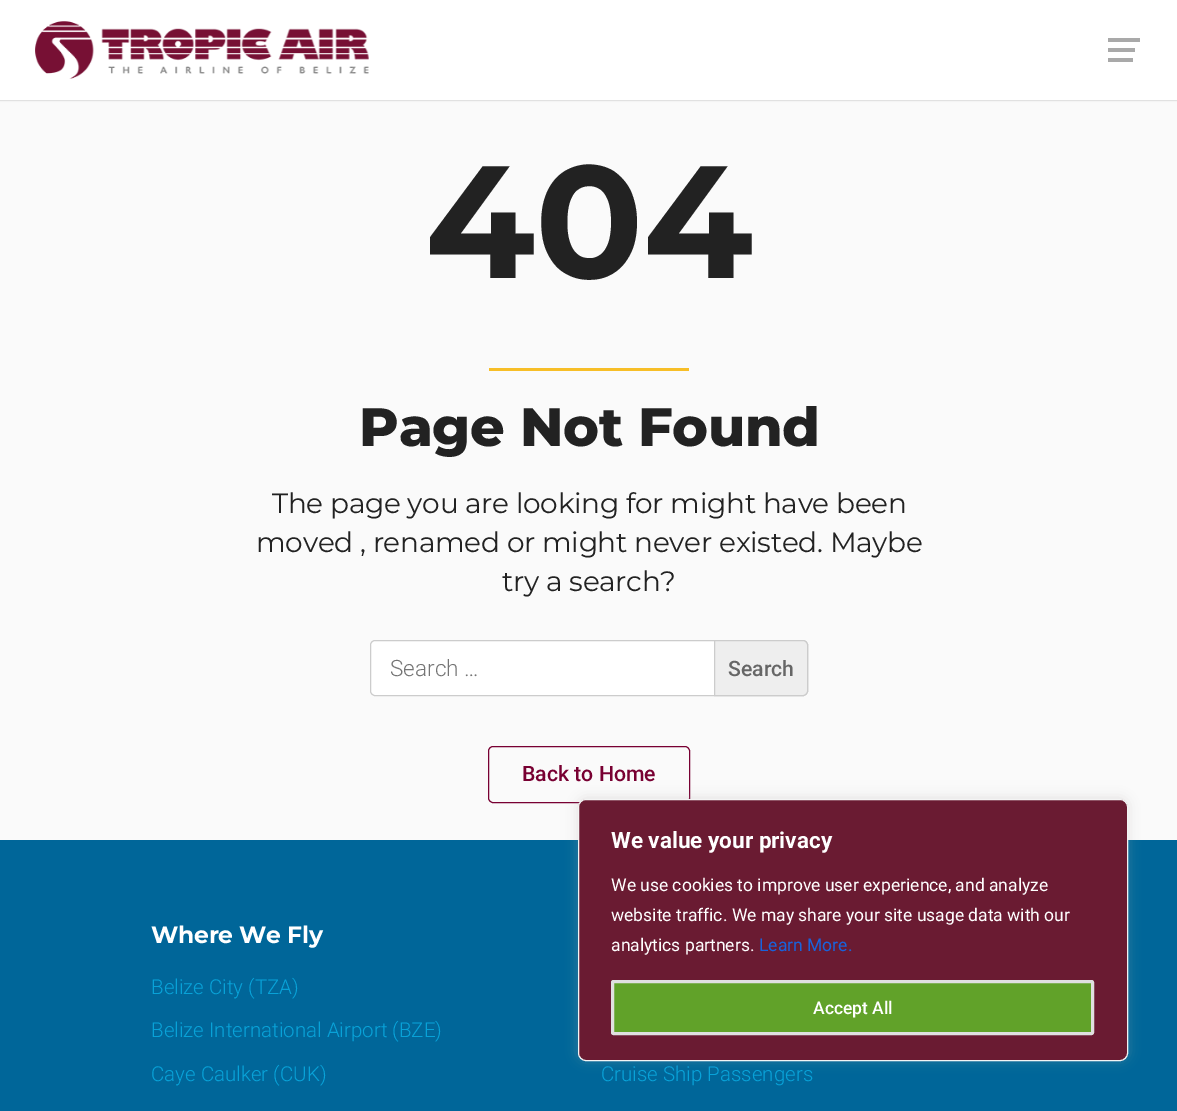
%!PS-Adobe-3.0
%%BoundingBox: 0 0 1177 1111
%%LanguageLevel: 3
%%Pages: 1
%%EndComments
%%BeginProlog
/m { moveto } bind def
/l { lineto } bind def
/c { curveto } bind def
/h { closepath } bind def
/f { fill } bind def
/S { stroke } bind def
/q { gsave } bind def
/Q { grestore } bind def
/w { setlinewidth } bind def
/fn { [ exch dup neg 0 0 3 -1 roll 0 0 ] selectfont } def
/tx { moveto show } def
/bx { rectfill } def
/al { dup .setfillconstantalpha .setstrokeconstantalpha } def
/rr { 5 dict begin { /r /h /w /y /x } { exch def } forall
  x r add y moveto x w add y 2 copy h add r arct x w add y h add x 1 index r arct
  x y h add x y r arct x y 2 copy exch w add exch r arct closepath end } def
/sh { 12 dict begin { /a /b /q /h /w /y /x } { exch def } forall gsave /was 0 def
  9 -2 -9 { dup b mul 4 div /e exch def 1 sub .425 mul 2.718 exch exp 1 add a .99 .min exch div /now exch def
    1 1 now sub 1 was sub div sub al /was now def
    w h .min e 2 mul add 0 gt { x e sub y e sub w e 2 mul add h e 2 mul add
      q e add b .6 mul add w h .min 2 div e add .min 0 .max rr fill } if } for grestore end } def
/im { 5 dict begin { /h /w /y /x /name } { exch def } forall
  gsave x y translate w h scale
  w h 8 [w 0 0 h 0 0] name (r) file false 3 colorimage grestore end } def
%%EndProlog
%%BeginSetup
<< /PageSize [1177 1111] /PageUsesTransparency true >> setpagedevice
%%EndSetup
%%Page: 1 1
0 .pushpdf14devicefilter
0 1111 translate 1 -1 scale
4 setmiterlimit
0.98 setgray
0 0 1177 1111 bx
0.196 setgray
0 0 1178 100 0 1 0.4 sh
1 setgray
0 0 1177 100 bx
(image0.raw) 35 21 334 58 im
0.663 setgray
1108 48 27 4 bx
1108 38 32 4 bx
1108 58 25 4 bx
/Montserrat-Bold 160 fn
0.133 setgray
425 278 m -0.3 0 (404) ashow
0.969 0.745 0.153 setrgbcolor
489 368 200 3 bx
/Montserrat-ExtraBold 54 fn
0.133 setgray
359 446 m -0.3 0 (Page Not Found) ashow
/Montserrat-Regular 28 fn
272 513 m -0.3 0 (The page you are looking for might have been) ashow
256 552 m -0.3 0 (moved , renamed or might never existed. Maybe) ashow
502 591 m -0.3 0 (try a search?) ashow
1 setgray
370.5 640.5 437 55 4.5 rr q f Q
0.8 setgray
S
/Roboto-Light 22.5 fn
0.459 setgray
(Search …) 390 676 tx
0.933 setgray
714.5 640.5 m 803 640.5 l 805.5 640.5 807.5 642.5 807.5 645 c 807.5 691 l 807.5 693.5 805.5 695.5 803 695.5 c 714.5 695.5 l h q f Q
0.8 setgray
S
/Roboto-Medium 21.25 fn
0.4 setgray
(Search) 728 676 tx
0.471 0 0.196 setrgbcolor
488.5 746.5 201 56 4.5 rr S
(Back to Home) 522 781 tx
0 0.4 0.6 setrgbcolor
0 840 1177 271 bx
/Montserrat-Bold 23.5 fn
1 setgray
151 943 m -0.3 0 (Where We Fly) ashow
/Roboto-Light 20.5 fn
0.031 0.635 0.847 setrgbcolor
(Belize City \(TZA\)) 151 994 tx
(Belize International Airport \(BZE\)) 151 1037 tx
(Caye Caulker \(CUK\)) 151 1081 tx
(Cruise Ship Passengers) 601 1081 tx
0.675 0.671 0.671 setrgbcolor
578 798 550 262 8 6 0.3 sh
0.416 0.106 0.196 setrgbcolor
578.5 799.5 549 261 7.5 rr q f Q
0.957 setgray
S
/Roboto-Bold 22.5 fn
1 setgray
(We value your privacy) 611 848 tx
/Roboto-Regular 17.5 fn
(We use cookies to improve user experience, and analyze) 611 891 tx
(website traffic. We may share your site usage data with our) 611 921 tx
(analytics partners.) 611 951 tx
0.094 0.388 0.863 setrgbcolor
(Learn More.) 759 951 tx
0.38 0.635 0.161 setrgbcolor
612.5 981.5 480 52 1 rr q f Q
0.878 setgray
3 w
S
/Roboto-Medium 17.5 fn
1 setgray
(Accept All) 813 1014 tx
.poppdf14devicefilter showpage
%%EOF
